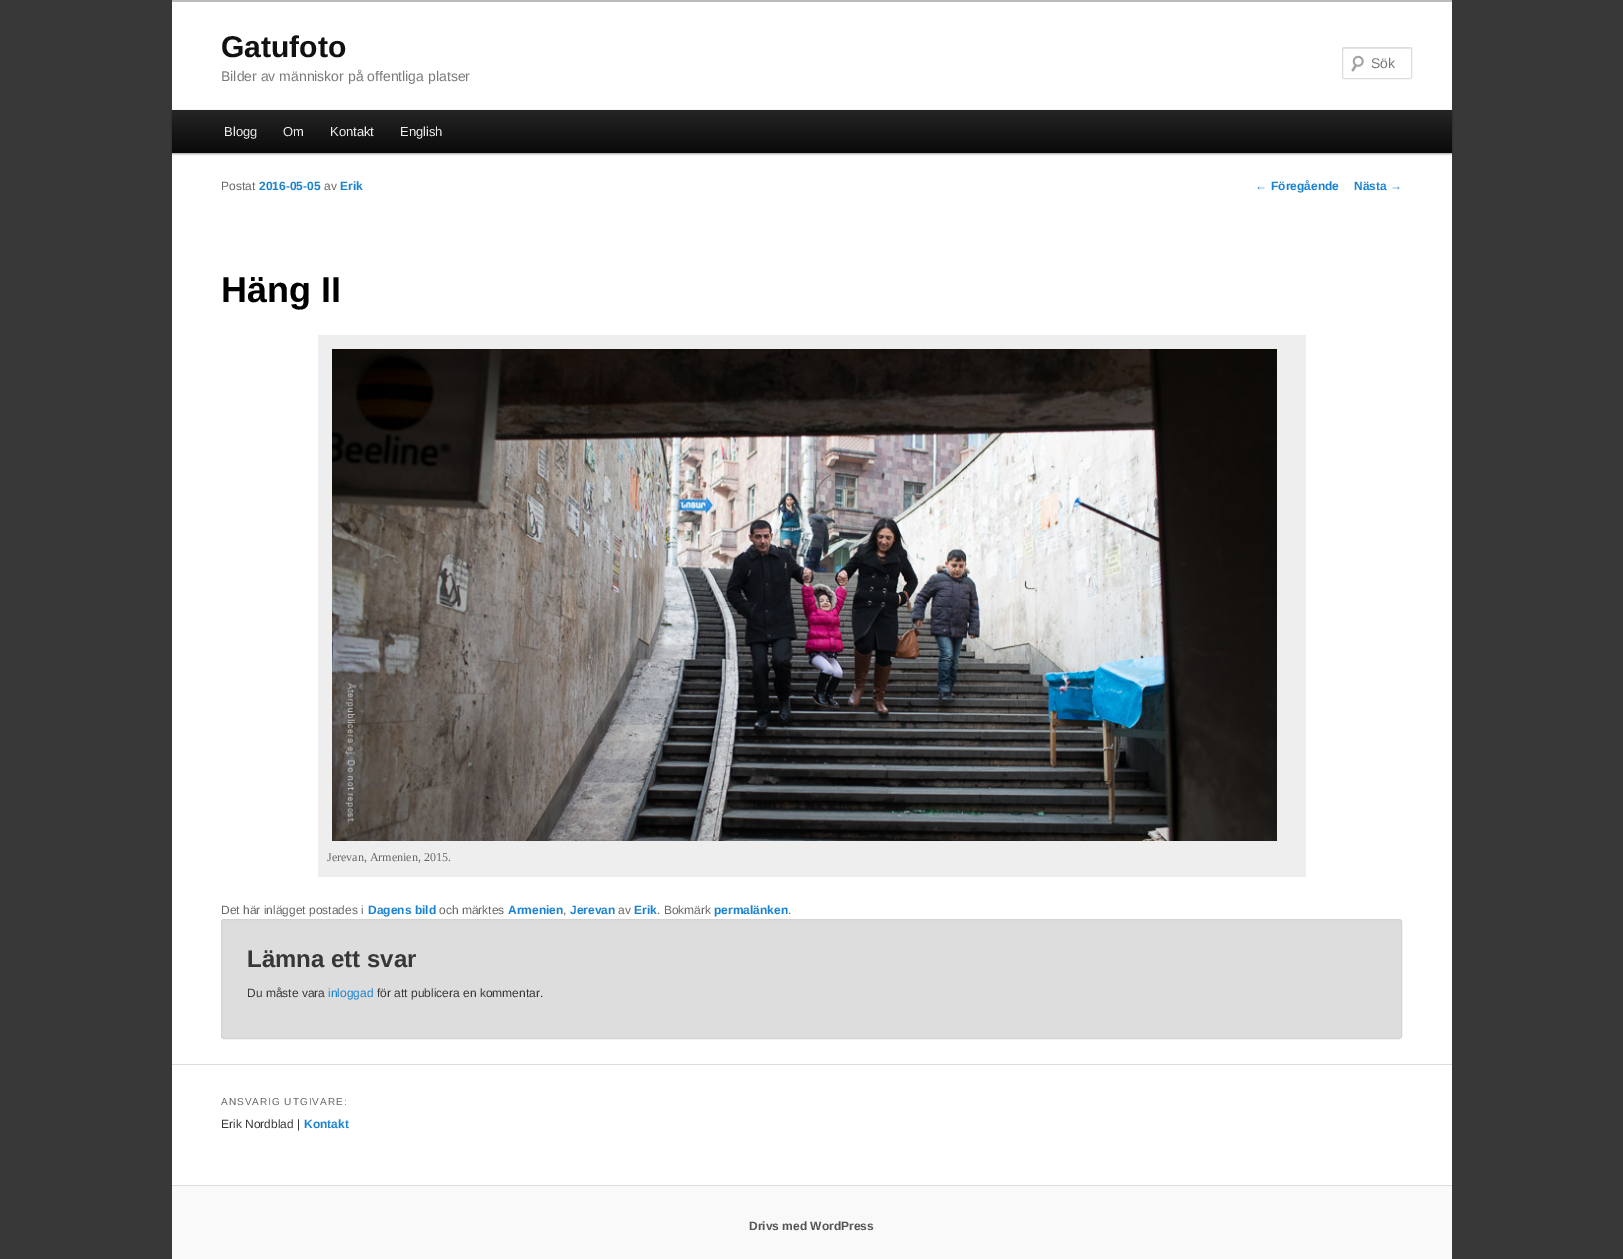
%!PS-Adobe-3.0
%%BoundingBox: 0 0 1623 1259
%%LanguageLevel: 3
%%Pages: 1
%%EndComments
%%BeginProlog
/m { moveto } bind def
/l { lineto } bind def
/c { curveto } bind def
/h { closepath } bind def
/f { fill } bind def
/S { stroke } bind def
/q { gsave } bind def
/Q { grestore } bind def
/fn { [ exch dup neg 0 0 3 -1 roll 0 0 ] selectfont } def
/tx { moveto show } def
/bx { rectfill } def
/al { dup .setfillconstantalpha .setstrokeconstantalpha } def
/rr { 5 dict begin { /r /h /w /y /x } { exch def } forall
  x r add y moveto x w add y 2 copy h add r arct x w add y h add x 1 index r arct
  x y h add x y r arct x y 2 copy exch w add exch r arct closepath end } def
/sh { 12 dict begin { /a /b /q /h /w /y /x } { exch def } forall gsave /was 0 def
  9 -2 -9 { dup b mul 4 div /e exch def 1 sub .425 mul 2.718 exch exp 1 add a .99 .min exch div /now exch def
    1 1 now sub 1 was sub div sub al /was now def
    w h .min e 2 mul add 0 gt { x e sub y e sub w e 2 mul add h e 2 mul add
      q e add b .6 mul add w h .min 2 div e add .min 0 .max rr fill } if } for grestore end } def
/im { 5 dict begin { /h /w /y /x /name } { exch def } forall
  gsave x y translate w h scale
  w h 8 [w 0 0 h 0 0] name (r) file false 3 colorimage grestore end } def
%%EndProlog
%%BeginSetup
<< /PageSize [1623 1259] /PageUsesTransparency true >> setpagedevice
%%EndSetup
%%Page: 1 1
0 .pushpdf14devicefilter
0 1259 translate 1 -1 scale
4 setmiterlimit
0.22 setgray
0 0 1623 1259 bx
1 setgray
172 2 1280 1183 bx
0.733 setgray
172 0 1280 2 bx
/LiberationSans-Bold 30 fn
0.067 setgray
(Gatufoto) 221 57 tx
/LiberationSans-Regular 14 fn
0.478 setgray
(Bilder av människor på offentliga platser) 221 81 tx
(image0.raw) 1351 55 13 17 im
0.902 setgray
1344 49 m 1410 49 l 1411 49 1411 49 1411 50 c 1411 45 1403 48 1399 48 c 1344 48 l 1343 48 1343 49 1343 50 c 1343 49 1343 49 1344 49 c h f
0.867 setgray
1342.5 47.5 69 31 1.5 rr S
0.478 setgray
(Sök) 1371 68 tx
0 setgray
172 111 1280 43 0 1 0.4 sh
q 172 110 m 1452 110 l 1452 153 l 172 153 l h clip newpath
<< /ShadingType 2 /ColorSpace /DeviceRGB /Coords [812 110 812 153] /Extend [true true] /Function << /FunctionType 2 /Domain [0 1] /C0 [0.145 0.145 0.145] /C1 [0.039 0.039 0.039] /N 1 >> >> shfill Q
/LiberationSans-Regular 13 fn
0.933 setgray
(Blogg) 224 136 tx
(Om) 283 136 tx
(Kontakt) 330 136 tx
(English) 400 136 tx
/LiberationSans-Regular 12 fn
0.4 setgray
(Postat) 221 190 tx
/LiberationSans-Bold 12 fn
0.098 0.51 0.82 setrgbcolor
(2016-05-05) 259 190 tx
/LiberationSans-Regular 12 fn
0.4 setgray
(av) 324 190 tx
/LiberationSans-Bold 12 fn
0.098 0.51 0.82 setrgbcolor
(Erik) 340 190 tx
/LiberationSans-Bold 36 fn
0 setgray
(Häng II) 221 302 tx
0.933 setgray
318 335 988 542 bx
(image1.raw) 332 349 945 492 im
/LiberationSerif-Regular 12 fn
0.4 setgray
(Jerevan, Armenien, 2015.) 327 861 tx
/LiberationSans-Regular 12 fn
(Det här inlägget postades i) 221 914 tx
/LiberationSans-Bold 12 fn
0.098 0.51 0.82 setrgbcolor
(Dagens bild) 368 914 tx
/LiberationSans-Regular 12 fn
0.4 setgray
(och märktes) 439 914 tx
/LiberationSans-Bold 12 fn
0.098 0.51 0.82 setrgbcolor
(Armenien) 508 914 tx
/LiberationSans-Regular 12 fn
0.4 setgray
(,) 563 914 tx
/LiberationSans-Bold 12 fn
0.098 0.51 0.82 setrgbcolor
(Jerevan) 570 914 tx
/LiberationSans-Regular 12 fn
0.4 setgray
(av) 618 914 tx
/LiberationSans-Bold 12 fn
0.098 0.51 0.82 setrgbcolor
(Erik) 634 914 tx
/LiberationSans-Regular 12 fn
0.4 setgray
(. Bokmärk) 657 914 tx
/LiberationSans-Bold 12 fn
0.098 0.51 0.82 setrgbcolor
(permalänken) 714 914 tx
/LiberationSans-Regular 12 fn
0.4 setgray
(.) 788 914 tx
0.098 0.51 0.82 setrgbcolor
(←) 1255 190 tx
/LiberationSans-Bold 12 fn
(Föregående) 1271 190 tx
(Nästa) 1354 190 tx
/LiberationSans-Regular 12 fn
(→) 1390 190 tx
0.867 setgray
221.5 919.5 1180 119 2.5 rr q f Q
0.827 setgray
S
/LiberationSans-Bold 24 fn
0.216 setgray
(Lämna ett svar) 247 967 tx
/LiberationSans-Regular 12 fn
(Du måste vara) 247 997 tx
0.098 0.51 0.82 setrgbcolor
(inloggad) 328 997 tx
0.216 setgray
(för att publicera en kommentar.) 377 997 tx
0.867 setgray
172 1064 1280 1 bx
/LiberationSans-Regular 10 fn
0.4 setgray
221 1105 m 1 0 (ANSVARIG UTGIVARE:) ashow
/LiberationSans-Regular 12 fn
0.216 setgray
(Erik Nordblad |) 221 1128 tx
/LiberationSans-Bold 12 fn
0.098 0.51 0.82 setrgbcolor
(Kontakt) 304 1128 tx
0.976 setgray
172 1186 1280 73 bx
0.867 setgray
172 1185 1280 1 bx
0.333 setgray
(Drivs med WordPress) 749 1230 tx
.poppdf14devicefilter showpage
%%EOF
